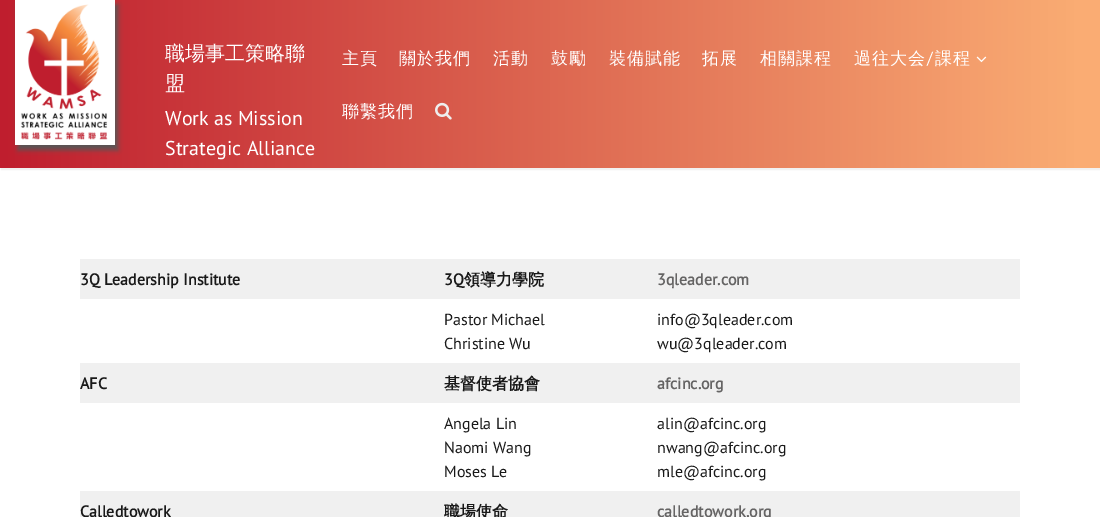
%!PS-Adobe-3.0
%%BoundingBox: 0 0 1100 517
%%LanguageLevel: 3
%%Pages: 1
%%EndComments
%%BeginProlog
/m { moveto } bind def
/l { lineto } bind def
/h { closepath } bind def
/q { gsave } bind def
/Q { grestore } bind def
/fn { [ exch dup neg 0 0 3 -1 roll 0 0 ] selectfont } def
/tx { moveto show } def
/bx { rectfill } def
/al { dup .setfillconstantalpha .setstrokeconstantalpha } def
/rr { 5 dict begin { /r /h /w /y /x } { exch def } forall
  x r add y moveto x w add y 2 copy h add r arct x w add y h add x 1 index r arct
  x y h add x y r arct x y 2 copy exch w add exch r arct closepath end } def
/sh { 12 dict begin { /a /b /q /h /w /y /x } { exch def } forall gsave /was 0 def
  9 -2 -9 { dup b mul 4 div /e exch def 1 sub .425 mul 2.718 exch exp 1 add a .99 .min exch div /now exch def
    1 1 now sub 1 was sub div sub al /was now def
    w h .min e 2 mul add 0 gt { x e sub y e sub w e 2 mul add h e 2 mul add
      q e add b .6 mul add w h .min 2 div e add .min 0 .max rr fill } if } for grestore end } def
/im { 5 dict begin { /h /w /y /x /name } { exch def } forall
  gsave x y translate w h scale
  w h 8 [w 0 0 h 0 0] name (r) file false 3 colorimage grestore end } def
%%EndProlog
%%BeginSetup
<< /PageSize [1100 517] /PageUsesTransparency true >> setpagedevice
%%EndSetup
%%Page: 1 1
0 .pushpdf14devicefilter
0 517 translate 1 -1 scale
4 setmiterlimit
1 setgray
0 0 1100 517 bx
0.941 setgray
1 2 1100 168 0 0.5 1 sh
q 0 0 m 1100 0 l 1100 168 l 0 168 l h clip newpath
<< /ShadingType 2 /ColorSpace /DeviceRGB /Coords [0 84 1100 84] /Extend [true true] /Function << /FunctionType 3 /Domain [0 1] /Functions [<< /FunctionType 2 /Domain [0 1] /C0 [0.749 0.118 0.18] /C1 [0.98 0.675 0.451] /N 1 >> << /FunctionType 2 /Domain [0 1] /C0 [0.98 0.675 0.451] /C1 [0.98 0.675 0.451] /N 1 >>] /Bounds [0.98] /Encode [0 1 0 1] >> >> shfill Q
0.333 setgray
18 5 100 145 0 2.5 1 sh
(image0.raw) 15 0 100 145 im
/WenQuanYiZenHei-Medium 20 fn
1 setgray
(職場事工策略聯) 165 60 tx
(盟) 165 90 tx
/PTSans-Regular 20 fn
(Work as Mission) 165 125 tx
(Strategic Alliance) 165 155 tx
/WenQuanYiZenHei-Medium 17 fn
342 64 m 1 0 (主頁) ashow
399 64 m 1 0 (關於我們) ashow
493 64 m 1 0 (活動) ashow
551 64 m 1 0 (鼓勵) ashow
609 64 m 1 0 (裝備賦能) ashow
702 64 m 1 0 (拓展) ashow
760 64 m 1 0 (相關課程) ashow
854 64 m 1 0 (過往大会) ashow
/Oxygen-Regular 17 fn
926 64 m 1 0 (/) ashow
/WenQuanYiZenHei-Medium 17 fn
935 64 m 1 0 (課程) ashow
(image1.raw) 976 56 11 7 im
342 117 m 1 0 (聯繫我們) ashow
(image2.raw) 435 102 17 18 im
0.941 setgray
80 259 940 40 bx
/PTSans-Bold 16 fn
0.098 setgray
(3Q Leadership Institute) 80 285 tx
(3Q) 444 285 tx
/WenQuanYiZenHei-Bold 16 fn
(領導力學院) 464 285 tx
/PTSans-Bold 16 fn
0.396 0.392 0.392 setrgbcolor
(3qleader.com) 657 285 tx
/PTSans-Regular 16 fn
0.098 setgray
(Pastor Michael) 444 325 tx
(Christine Wu) 444 349 tx
(info@3qleader.com) 657 325 tx
(wu@3qleader.com) 657 349 tx
0.941 setgray
80 363 940 40 bx
/PTSans-Bold 16 fn
0.098 setgray
(AFC) 80 389 tx
/WenQuanYiZenHei-Bold 16 fn
(基督使者協會) 444 389 tx
/PTSans-Bold 16 fn
0.396 0.392 0.392 setrgbcolor
(afcinc.org) 657 389 tx
/PTSans-Regular 16 fn
0.098 setgray
(Angela Lin) 444 429 tx
(Naomi Wang) 444 453 tx
(Moses Le) 444 477 tx
(alin@afcinc.org) 657 429 tx
(nwang@afcinc.org) 657 453 tx
(mle@afcinc.org) 657 477 tx
0.941 setgray
80 491 940 26 bx
/PTSans-Bold 16 fn
0.098 setgray
(Calledtowork) 80 517 tx
/WenQuanYiZenHei-Bold 16 fn
(職場使命) 444 517 tx
/PTSans-Bold 16 fn
0.396 0.392 0.392 setrgbcolor
(calledtowork.org) 657 517 tx
.poppdf14devicefilter showpage
%%EOF
